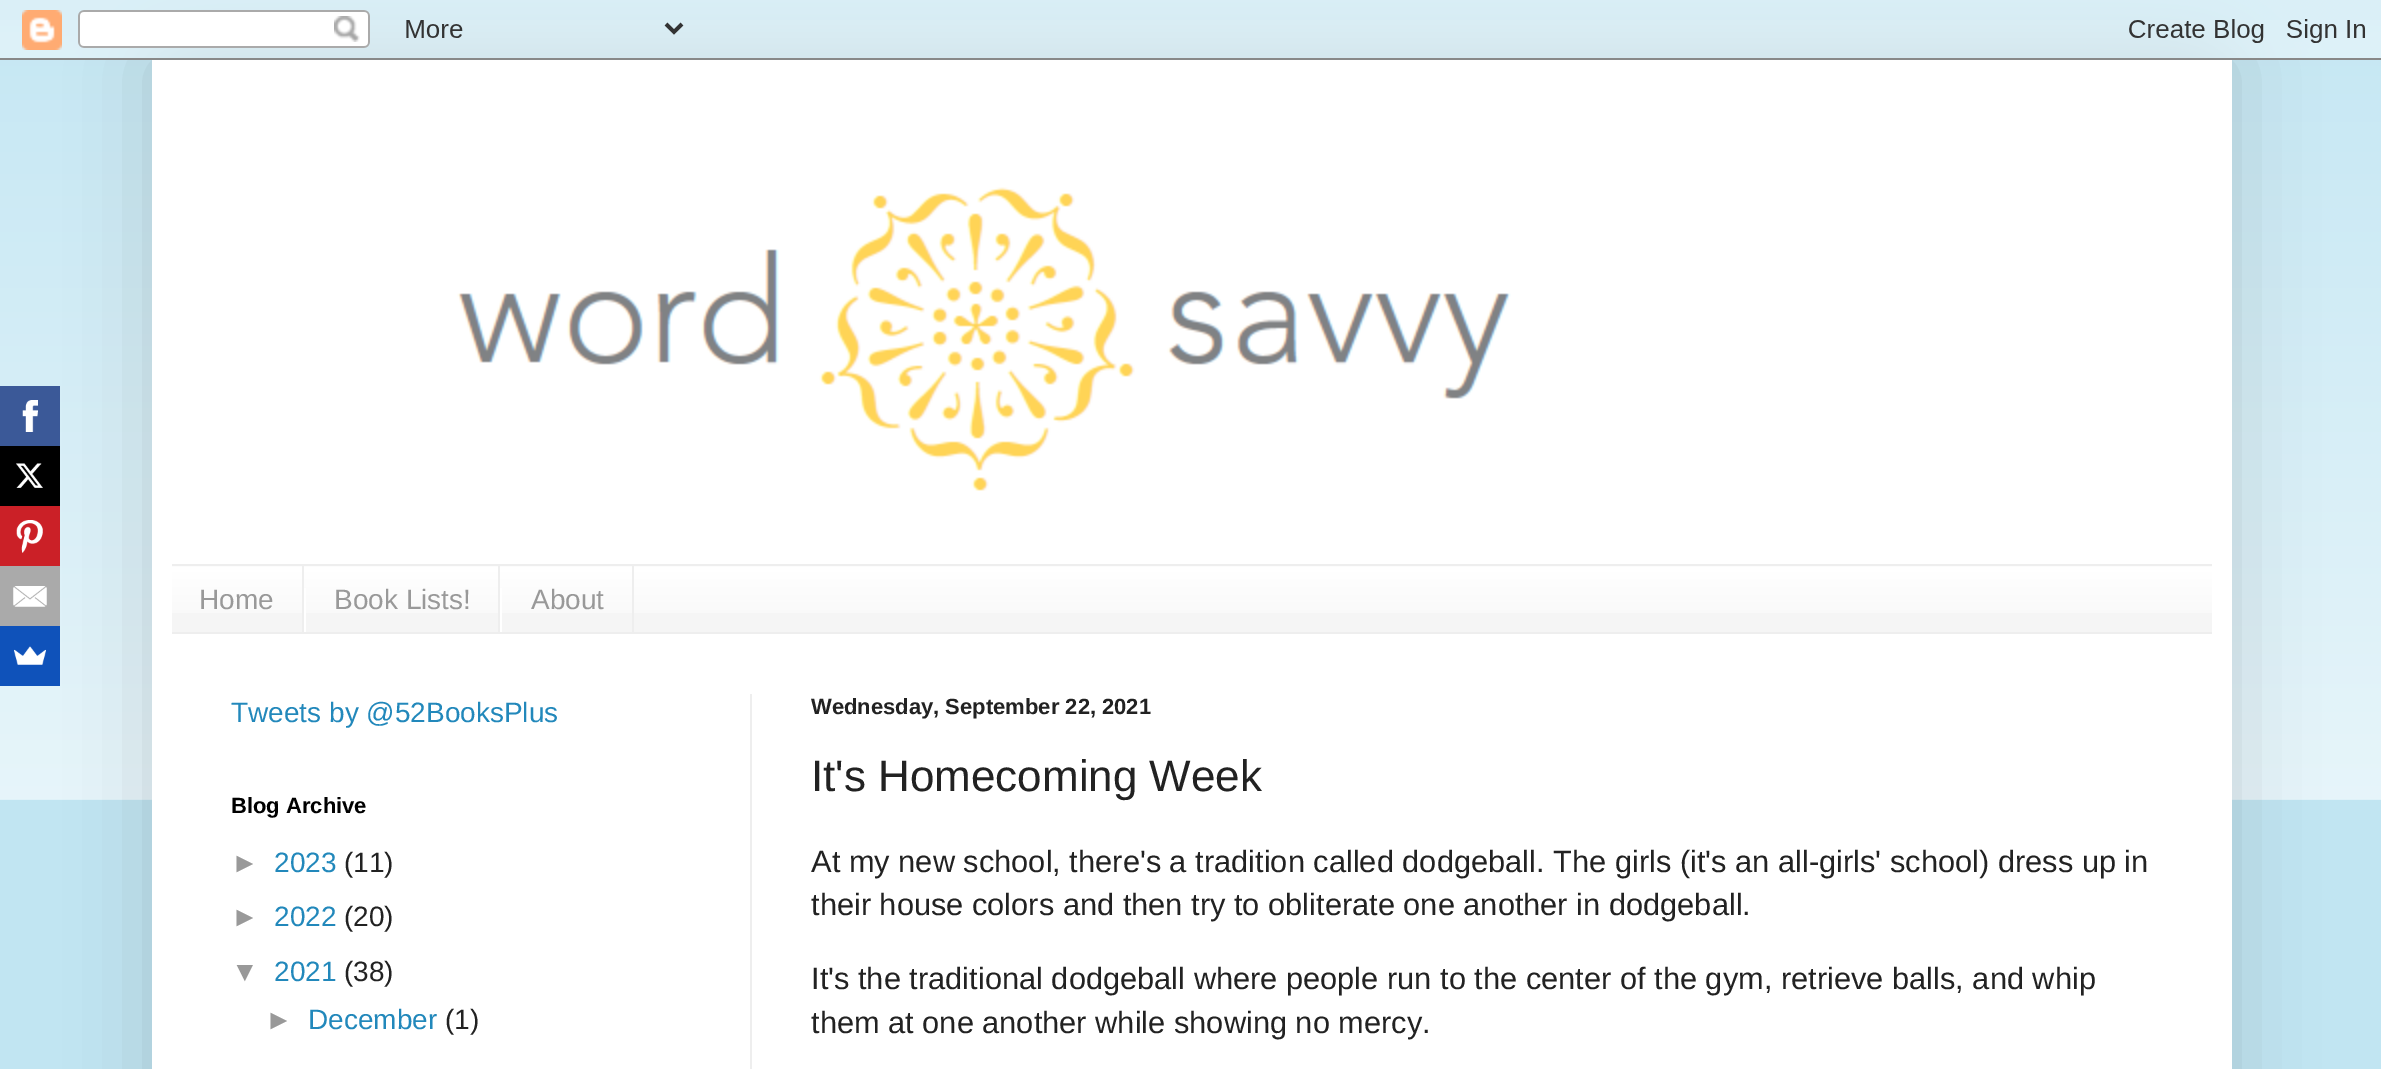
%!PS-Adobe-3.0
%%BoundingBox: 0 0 2381 1069
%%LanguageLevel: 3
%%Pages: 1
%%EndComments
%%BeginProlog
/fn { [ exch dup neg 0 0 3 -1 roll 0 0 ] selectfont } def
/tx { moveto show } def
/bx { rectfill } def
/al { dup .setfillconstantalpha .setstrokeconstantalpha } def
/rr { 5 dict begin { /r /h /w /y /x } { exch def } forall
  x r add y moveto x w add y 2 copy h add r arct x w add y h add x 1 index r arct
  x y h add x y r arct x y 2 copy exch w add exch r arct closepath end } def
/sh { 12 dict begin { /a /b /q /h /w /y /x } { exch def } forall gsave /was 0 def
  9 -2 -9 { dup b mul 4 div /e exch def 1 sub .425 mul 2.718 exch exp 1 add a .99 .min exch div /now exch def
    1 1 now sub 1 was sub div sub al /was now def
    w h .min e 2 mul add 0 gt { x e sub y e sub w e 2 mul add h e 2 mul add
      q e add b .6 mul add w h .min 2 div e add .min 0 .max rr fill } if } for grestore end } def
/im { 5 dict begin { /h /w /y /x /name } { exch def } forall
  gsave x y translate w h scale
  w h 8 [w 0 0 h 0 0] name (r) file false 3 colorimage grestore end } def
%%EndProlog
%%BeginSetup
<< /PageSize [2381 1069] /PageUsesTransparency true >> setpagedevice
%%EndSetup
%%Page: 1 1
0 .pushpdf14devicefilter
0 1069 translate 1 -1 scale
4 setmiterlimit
0.757 0.898 0.949 setrgbcolor
0 0 2381 1069 bx
(image1.raw) 0 20 2381 780 im
0 setgray
152 60 2080 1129 0 40 0.15 sh
(image0.raw) 0 0 2381 60 im
0.231 0.349 0.596 setrgbcolor
0 386 60 60 bx
(image2.raw) 22 400 16 32 im
0 setgray
0 446 60 60 bx
(image3.raw) 16 463 27 25 im
0.796 0.125 0.153 setrgbcolor
0 506 60 60 bx
(image4.raw) 16 520 27 33 im
0.667 setgray
0 566 60 60 bx
(image5.raw) 13 586 34 21 im
0.059 0.322 0.729 setrgbcolor
0 626 60 60 bx
(image6.raw) 14 646 32 19 im
1 setgray
152 60 2080 1009 bx
(image7.raw) 457 187 1054 304 im
0.961 setgray
172 566 2040 66 bx
(image8.raw) 172 566 2040 47 im
0.933 setgray
172 564 2040 2 bx
172 632 2040 2 bx
302 566 2 66 bx
/LiberationSans-Regular 28 fn
0.6 setgray
(Home) 199 609 tx
0.933 setgray
498 566 2 66 bx
1 setgray
304 588 2 44 bx
0.6 setgray
(Book Lists!) 334 609 tx
0.933 setgray
632 566 2 66 bx
1 setgray
500 588 2 44 bx
0.6 setgray
(About) 531 609 tx
0.933 setgray
750 694 2 375 bx
0.133 0.533 0.733 setrgbcolor
(Tweets by @52BooksPlus) 231 722 tx
/LiberationSans-Bold 22 fn
0 setgray
(Blog Archive) 231 813 tx
/LiberationSans-Regular 28 fn
0.6 setgray
(►) 231 872 tx
0.133 0.533 0.733 setrgbcolor
(2023) 274 872 tx
0.133 setgray
(\(11\)) 344 872 tx
0.6 setgray
(►) 231 926 tx
0.133 0.533 0.733 setrgbcolor
(2022) 274 926 tx
0.133 setgray
(\(20\)) 344 926 tx
0.6 setgray
(▼) 231 981 tx
0.133 0.533 0.733 setrgbcolor
(2021) 274 981 tx
0.133 setgray
(\(38\)) 344 981 tx
0.6 setgray
(►) 265 1029 tx
0.133 0.533 0.733 setrgbcolor
(December) 308 1029 tx
0.133 setgray
(\(1\)) 445 1029 tx
/LiberationSans-Bold 22 fn
(Wednesday, September 22, 2021) 811 714 tx
/LiberationSans-Regular 44 fn
(It's Homecoming Week) 811 791 tx
/LiberationSans-Regular 30.8 fn
(At my new school, there's a tradition called dodgeball. The girls \(it's an all-girls' school\) dress up in) 811 872 tx
(their house colors and then try to obliterate one another in dodgeball.) 811 915 tx
(It's the traditional dodgeball where people run to the center of the gym, retrieve balls, and whip) 811 989 tx
(them at one another while showing no mercy.) 811 1033 tx
.poppdf14devicefilter showpage
%%EOF
